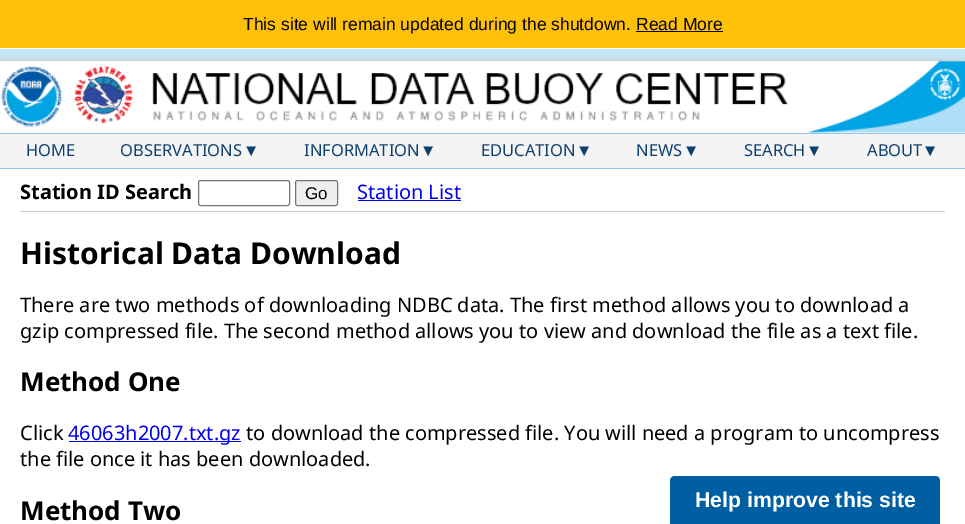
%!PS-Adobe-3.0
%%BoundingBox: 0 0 965 524
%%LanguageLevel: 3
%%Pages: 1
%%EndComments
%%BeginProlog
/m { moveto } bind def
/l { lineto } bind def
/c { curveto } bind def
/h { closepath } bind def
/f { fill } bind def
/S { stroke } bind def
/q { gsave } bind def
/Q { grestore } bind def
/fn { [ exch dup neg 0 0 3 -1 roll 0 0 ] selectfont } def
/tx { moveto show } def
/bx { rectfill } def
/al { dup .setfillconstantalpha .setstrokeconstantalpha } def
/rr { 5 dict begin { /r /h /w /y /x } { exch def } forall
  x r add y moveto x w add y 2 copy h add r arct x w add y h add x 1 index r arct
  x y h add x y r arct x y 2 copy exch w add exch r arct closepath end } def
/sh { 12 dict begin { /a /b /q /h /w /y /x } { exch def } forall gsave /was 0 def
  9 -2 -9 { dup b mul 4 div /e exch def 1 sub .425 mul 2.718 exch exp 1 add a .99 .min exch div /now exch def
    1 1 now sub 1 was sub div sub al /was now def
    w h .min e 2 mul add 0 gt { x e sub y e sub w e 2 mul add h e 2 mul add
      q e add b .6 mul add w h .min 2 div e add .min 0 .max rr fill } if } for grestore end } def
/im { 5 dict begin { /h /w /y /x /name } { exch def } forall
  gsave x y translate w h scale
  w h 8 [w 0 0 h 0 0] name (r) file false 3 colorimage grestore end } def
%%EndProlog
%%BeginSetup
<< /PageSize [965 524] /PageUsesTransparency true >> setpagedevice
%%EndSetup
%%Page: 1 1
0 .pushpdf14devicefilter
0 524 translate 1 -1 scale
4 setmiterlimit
0.773 0.898 0.961 setrgbcolor
0 0 965 524 bx
1 0.757 0.027 setrgbcolor
0 0 965 48 bx
1 setgray
0 48 965 1 bx
/LiberationSans-Regular 17.5 fn
0 setgray
(This site will remain updated during the shutdown. Read More) 243 30 tx
636 31 87 1 bx
0.8 setgray
4 61 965 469 0 2 1 sh
-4 61 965 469 0 2 1 sh
1 setgray
0 61 965 463 bx
0.58 0.776 0.937 setrgbcolor
0 133 965 1 bx
(image0.raw) 1 66 61 61 im
(image1.raw) 74 65 59 59 im
(image2.raw) 152 73 636 48 im
(image3.raw) 807 61 158 72 im
0.957 setgray
0 134 965 34 bx
0.58 0.776 0.937 setrgbcolor
0 168 965 1 bx
/NotoSans-Regular 16.5 fn
0.063 0.251 0.439 setrgbcolor
(HOME) 26 156 tx
(OBSERVATIONS) 120 156 tx
/LiberationSans-Regular 16.5 fn
(▼) 243 156 tx
/NotoSans-Regular 16.5 fn
(INFORMATION) 304 156 tx
/LiberationSans-Regular 16.5 fn
(▼) 420 156 tx
/NotoSans-Regular 16.5 fn
(EDUCATION) 481 156 tx
/LiberationSans-Regular 16.5 fn
(▼) 576 156 tx
/NotoSans-Regular 16.5 fn
(NEWS) 636 156 tx
/LiberationSans-Regular 16.5 fn
(▼) 683 156 tx
/NotoSans-Regular 16.5 fn
(SEARCH) 744 156 tx
/LiberationSans-Regular 16.5 fn
(▼) 806 156 tx
/NotoSans-Regular 16.5 fn
(ABOUT) 867 156 tx
/LiberationSans-Regular 16.5 fn
(▼) 922 156 tx
0.8 setgray
20 211 925 1 bx
/NotoSans-Bold 20 fn
0 setgray
(Station ID Search) 20 199 tx
0.463 setgray
198.5 180.5 91 25 2 rr S
0.937 setgray
295.5 180.5 42 25 2 rr q f Q
0.463 setgray
S
/LiberationSans-Regular 17 fn
0 setgray
(Go) 305 199 tx
/NotoSans-Regular 20 fn
0 0 0.933 setrgbcolor
(Station List) 357 199 tx
358 200 103 1 bx
/NotoSans-Bold 30 fn
0 setgray
(Historical Data Download) 20 264 tx
/NotoSans-Regular 20 fn
(There are two methods of downloading NDBC data. The first method allows you to download a) 20 312 tx
(gzip compressed file. The second method allows you to view and download the file as a text file.) 20 338 tx
/NotoSans-Bold 26 fn
(Method One) 20 391 tx
/NotoSans-Regular 20 fn
(Click) 20 440 tx
0 0 0.933 setrgbcolor
69 441 172 1 bx
(46063h2007.txt.gz) 68 440 tx
0 setgray
(to download the compressed file. You will need a program to uncompress) 246 440 tx
(the file once it has been downloaded.) 20 466 tx
/NotoSans-Bold 26 fn
(Method Two) 20 520 tx
0 0.369 0.635 setrgbcolor
675 476 m 935 476 l 938 476 940 478 940 481 c 940 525 l 670 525 l 670 481 l 670 478 672 476 675 476 c h f
/LiberationSans-Bold 21.25 fn
1 setgray
(Help improve this site) 695 507 tx
.poppdf14devicefilter showpage
%%EOF
